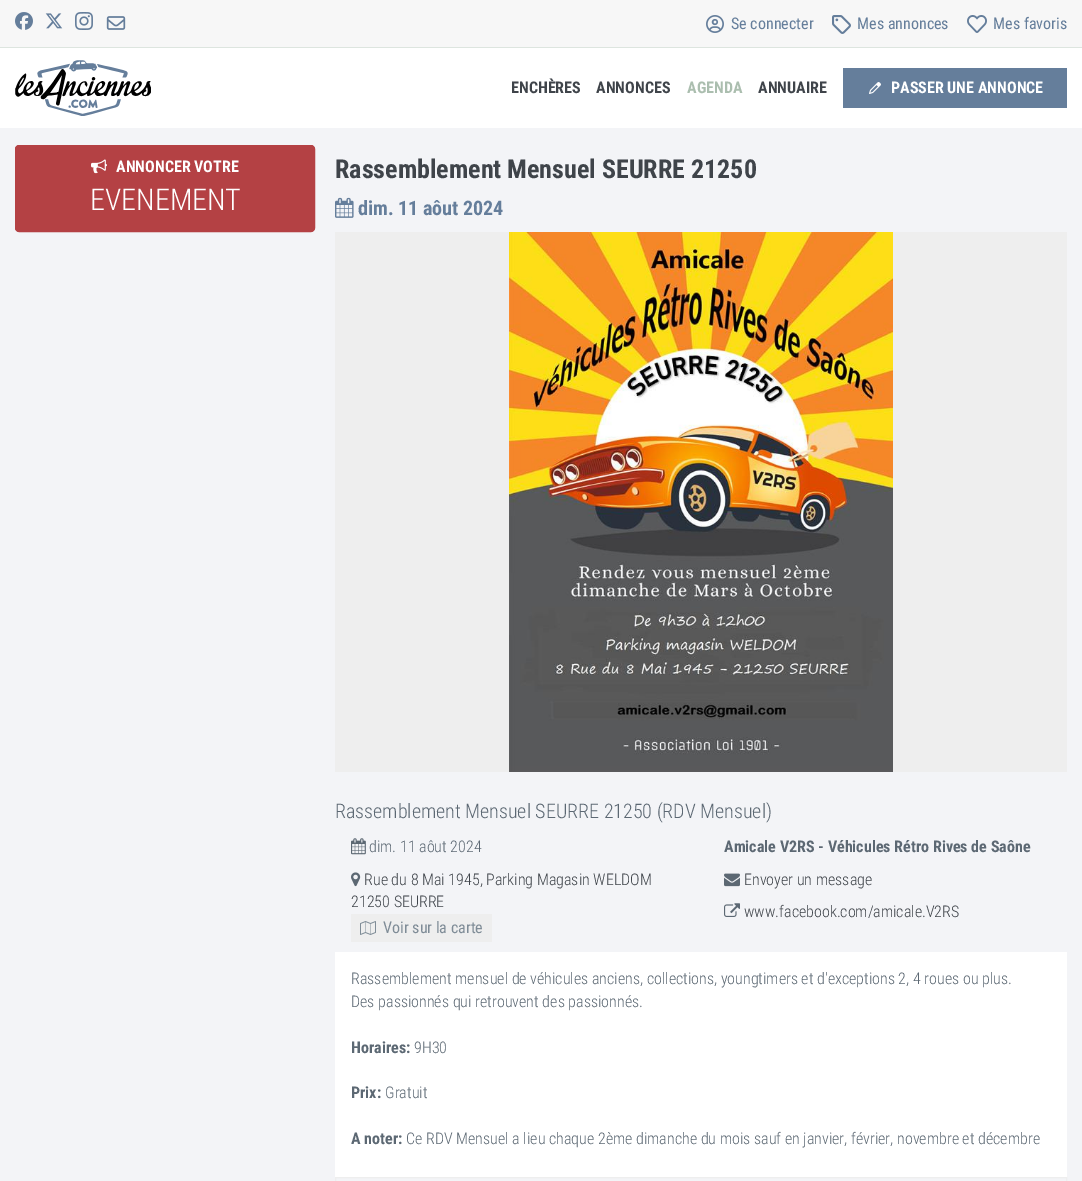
%!PS-Adobe-3.0
%%BoundingBox: 0 0 1082 1181
%%LanguageLevel: 3
%%Pages: 1
%%EndComments
%%BeginProlog
/f { fill } bind def
/S { stroke } bind def
/q { gsave } bind def
/Q { grestore } bind def
/fn { [ exch dup neg 0 0 3 -1 roll 0 0 ] selectfont } def
/tx { moveto show } def
/bx { rectfill } def
/rr { 5 dict begin { /r /h /w /y /x } { exch def } forall
  x r add y moveto x w add y 2 copy h add r arct x w add y h add x 1 index r arct
  x y h add x y r arct x y 2 copy exch w add exch r arct closepath end } def
/im { 5 dict begin { /h /w /y /x /name } { exch def } forall
  gsave x y translate w h scale
  w h 8 [w 0 0 h 0 0] name (r) file false 3 colorimage grestore end } def
%%EndProlog
%%BeginSetup
<< /PageSize [1082 1181] >> setpagedevice
%%EndSetup
%%Page: 1 1
0 1181 translate 1 -1 scale
4 setmiterlimit
0.953 0.957 0.969 setrgbcolor
0 0 1082 1181 bx
0.969 setgray
0 0 1082 47 bx
0.867 0.898 0.875 setrgbcolor
0 47 1082 1 bx
(image0.raw) 15 12 18 18 im
(image1.raw) 45 13 18 16 im
(image2.raw) 75 12 18 18 im
(image3.raw) 106 16 20 14 im
(image4.raw) 706 15 18 18 im
/RobotoCondensed-Regular 16 fn
0.396 0.494 0.608 setrgbcolor
(Se connecter) 731 29 tx
(image5.raw) 832 15 19 19 im
(Mes annonces) 857 29 tx
(image6.raw) 967 15 20 18 im
(Mes favoris) 993 29 tx
1 setgray
0 48 1082 80 bx
(image7.raw) 15 60 136 56 im
/RobotoCondensed-Bold 16 fn
0.247 0.267 0.29 setrgbcolor
(ENCHÈRES) 511 93 tx
(ANNONCES) 596 93 tx
0.671 0.745 0.686 setrgbcolor
(AGENDA) 687 93 tx
0.247 0.267 0.29 setrgbcolor
(ANNUAIRE) 758 93 tx
0.396 0.494 0.608 setrgbcolor
843 68 224 40 bx
(image8.raw) 869 82 12 12 im
1 setgray
(PASSER UNE ANNONCE) 891 93 tx
0.706 0.255 0.267 setrgbcolor
15.5 145.5 299 86 3.5 rr q f Q
S
(image9.raw) 91 159 16 15 im
1 setgray
(ANNONCER VOTRE) 116 172 tx
/RobotoCondensed-Light 30 fn
(EVENEMENT) 90 210 tx
/RobotoCondensed-Bold 26 fn
0.247 0.267 0.29 setrgbcolor
(Rassemblement Mensuel SEURRE 21250) 335 178 tx
(image10.raw) 335 197 19 21 im
/RobotoCondensed-Bold 20 fn
0.396 0.494 0.608 setrgbcolor
(dim. 11 aôut 2024) 358 215 tx
0.933 setgray
335 232 732 540 bx
(image11.raw) 509 232 384 540 im
/RobotoCondensed-Light 20 fn
0.361 0.408 0.451 setrgbcolor
(Rassemblement Mensuel SEURRE 21250 \(RDV Mensuel\)) 335 818 tx
(image12.raw) 351 838 15 17 im
/RobotoCondensed-Light 16 fn
(dim. 11 aôut 2024) 369 852 tx
(image13.raw) 351 872 10 15 im
0.247 0.267 0.29 setrgbcolor
(Rue du 8 Mai 1945, Parking Magasin WELDOM) 364 885 tx
(21250 SEURRE) 351 907 tx
0.933 setgray
351 914 141 28 bx
(image14.raw) 360 921 16 14 im
/RobotoCondensed-Regular 16 fn
0.498 0.549 0.592 setrgbcolor
(Voir sur la carte) 383 933 tx
/RobotoCondensed-Bold 16 fn
0.361 0.408 0.451 setrgbcolor
(Amicale V2RS - Véhicules Rétro Rives de Saône) 724 852 tx
(image15.raw) 724 873 16 14 im
/RobotoCondensed-Light 16 fn
0.247 0.267 0.29 setrgbcolor
(Envoyer un message) 744 885 tx
(image16.raw) 724 903 16 14 im
(www.facebook.com/amicale.V2RS) 744 917 tx
1 setgray
335 952 732 225 bx
0.361 0.408 0.451 setrgbcolor
(Rassemblement mensuel de véhicules anciens, collections, youngtimers et d'exceptions 2, 4 roues ou plus.) 351 984 tx
(Des passionnés qui retrouvent des passionnés.) 351 1007 tx
/RobotoCondensed-Bold 16 fn
(Horaires:) 351 1053 tx
/RobotoCondensed-Light 16 fn
(9H30) 414 1053 tx
/RobotoCondensed-Bold 16 fn
(Prix:) 351 1098 tx
/RobotoCondensed-Light 16 fn
(Gratuit) 385 1098 tx
/RobotoCondensed-Bold 16 fn
(A noter:) 351 1144 tx
/RobotoCondensed-Light 16 fn
(Ce RDV Mensuel a lieu chaque 2ème dimanche du mois sauf en janvier, février, novembre et décembre) 406 1144 tx
0.933 setgray
335.5 1177.5 731 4 rectstroke
showpage
%%EOF
